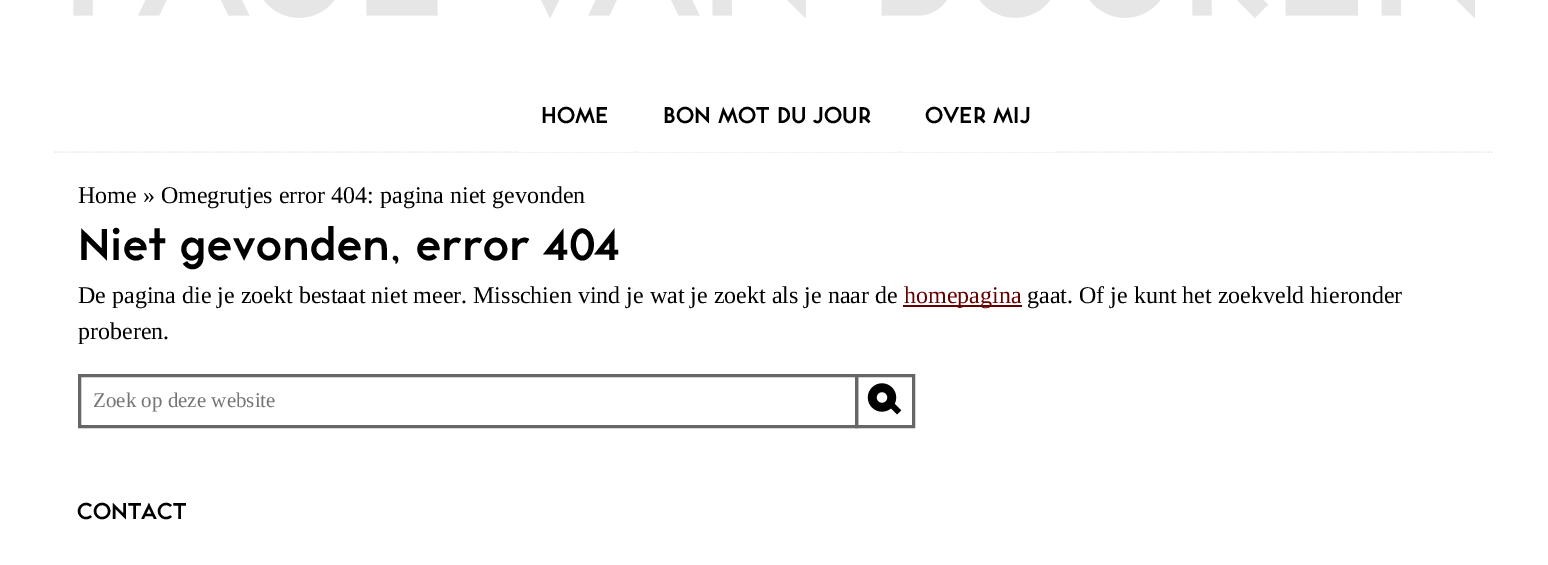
%!PS-Adobe-3.0
%%BoundingBox: 0 0 1548 565
%%LanguageLevel: 3
%%Pages: 1
%%EndComments
%%BeginProlog
/m { moveto } bind def
/l { lineto } bind def
/S { stroke } bind def
/w { setlinewidth } bind def
/fn { [ exch dup neg 0 0 3 -1 roll 0 0 ] selectfont } def
/tx { moveto show } def
/bx { rectfill } def
/im { 5 dict begin { /h /w /y /x /name } { exch def } forall
  gsave x y translate w h scale
  w h 8 [w 0 0 h 0 0] name (r) file false 3 colorimage grestore end } def
%%EndProlog
%%BeginSetup
<< /PageSize [1548 565] >> setpagedevice
%%EndSetup
%%Page: 1 1
0 565 translate 1 -1 scale
4 setmiterlimit
1 setgray
0 0 1548 565 bx
(image0.raw) 73 0 1402 18 im
0.918 setgray
1.5 w
[1.5 1.5] 0 setdash
54 152 m 1494 152 l S
1 setgray
518 151 115 1 bx
/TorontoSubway-Bold 24 fn
0 setgray
(HOME) 541 123 tx
1 setgray
639 151 257 1 bx
0 setgray
(BON MOT DU JOUR) 663 123 tx
1 setgray
902 151 153 1 bx
0 setgray
(OVER MIJ) 925 123 tx
/LiberationSerif-Regular 24 fn
(Home » Omegrutjes error 404: pagina niet gevonden) 78 203 tx
/TorontoSubway-Bold 46.75 fn
(Niet gevonden, error 404) 78 260 tx
/LiberationSerif-Regular 24 fn
(De pagina die je zoekt bestaat niet meer. Misschien vind je wat je zoekt als je naar de) 78 303 tx
0.4 0 0 setrgbcolor
903 305 119 2 bx
(homepagina) 904 303 tx
0 setgray
(gaat. Of je kunt het zoekveld hieronder) 1027 303 tx
(proberen.) 78 339 tx
0.4 setgray
3 w
[] 0 setdash
79.5 375.5 777 51 rectstroke
/LiberationSerif-Regular 21 fn
0.459 setgray
(Zoek op deze website) 93 407 tx
(image1.raw) 867 383 35 32 im
0.4 setgray
856.5 375.5 57 51 rectstroke
/TorontoSubway-Bold 24 fn
0 setgray
(CONTACT) 77 519 tx
showpage
%%EOF
